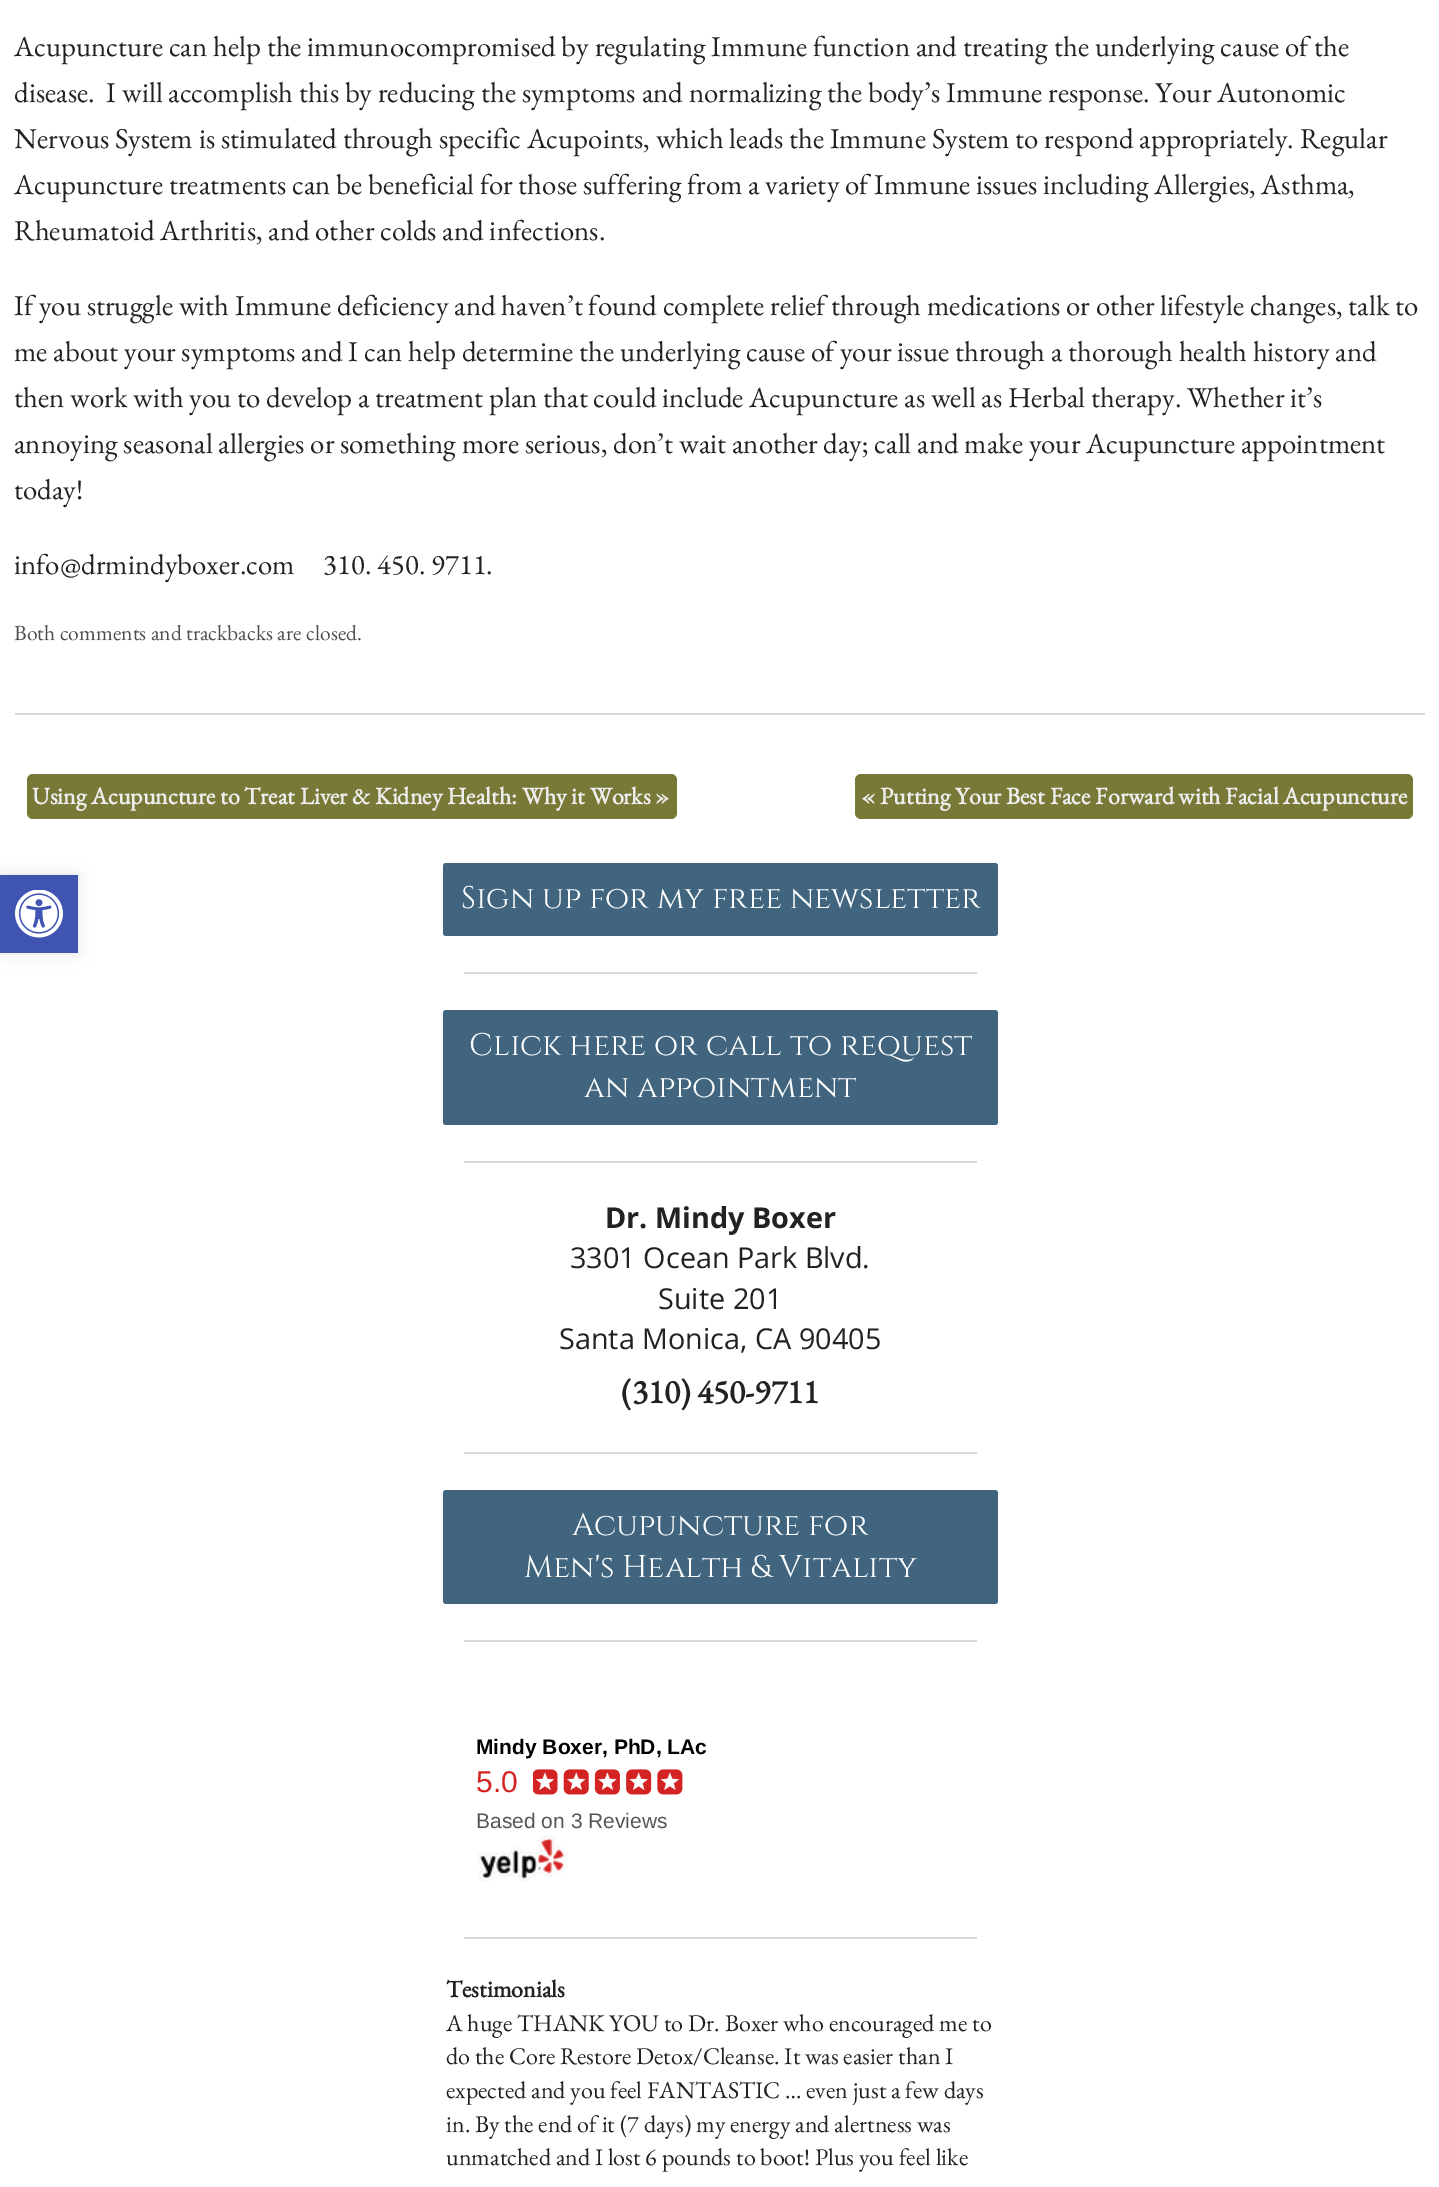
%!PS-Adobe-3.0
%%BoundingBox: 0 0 1439 2187
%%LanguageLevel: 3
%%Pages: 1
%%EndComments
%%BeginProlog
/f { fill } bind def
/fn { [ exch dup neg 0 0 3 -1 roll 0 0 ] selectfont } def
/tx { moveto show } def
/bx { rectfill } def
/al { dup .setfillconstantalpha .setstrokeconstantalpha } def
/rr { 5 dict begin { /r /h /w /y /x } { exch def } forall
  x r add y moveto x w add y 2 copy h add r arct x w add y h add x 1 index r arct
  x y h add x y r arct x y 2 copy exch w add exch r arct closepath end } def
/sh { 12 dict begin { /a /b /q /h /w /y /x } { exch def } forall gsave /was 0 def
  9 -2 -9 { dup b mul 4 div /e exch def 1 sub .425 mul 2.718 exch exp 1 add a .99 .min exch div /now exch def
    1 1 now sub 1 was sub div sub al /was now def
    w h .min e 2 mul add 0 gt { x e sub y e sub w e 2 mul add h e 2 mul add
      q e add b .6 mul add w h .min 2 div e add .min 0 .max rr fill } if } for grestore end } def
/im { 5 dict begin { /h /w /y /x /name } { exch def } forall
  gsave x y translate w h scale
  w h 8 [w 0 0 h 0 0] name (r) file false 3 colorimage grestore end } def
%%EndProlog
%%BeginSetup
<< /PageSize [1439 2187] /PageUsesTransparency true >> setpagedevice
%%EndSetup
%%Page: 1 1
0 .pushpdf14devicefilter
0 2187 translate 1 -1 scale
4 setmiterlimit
1 setgray
0 0 1439 2187 bx
0.851 setgray
15 713 1410 2 bx
/EBGaramond-Regular 28.8 fn
0.133 setgray
(Acupuncture can help the immunocompromised by regulating Immune function and treating the underlying cause of the) 14 56 tx
(disease.  I will accomplish this by reducing the symptoms and normalizing the body’s Immune response. Your Autonomic) 14 102 tx
(Nervous System is stimulated through specific Acupoints, which leads the Immune System to respond appropriately. Regular) 14 148 tx
(Acupuncture treatments can be beneficial for those suffering from a variety of Immune issues including Allergies, Asthma,) 14 194 tx
(Rheumatoid Arthritis, and other colds and infections.) 14 240 tx
(If you struggle with Immune deficiency and haven’t found complete relief through medications or other lifestyle changes, talk to) 14 315 tx
(me about your symptoms and I can help determine the underlying cause of your issue through a thorough health history and) 14 361 tx
(then work with you to develop a treatment plan that could include Acupuncture as well as Herbal therapy. Whether it’s) 14 407 tx
(annoying seasonal allergies or something more serious, don’t wait another day; call and make your Acupuncture appointment) 14 453 tx
(today!) 14 499 tx
(info@drmindyboxer.com     310. 450. 9711.) 14 574 tx
/EBGaramond-Regular 21.6 fn
0.306 setgray
(Both comments and trackbacks are closed.) 14 640 tx
0.471 0.471 0.216 setrgbcolor
27 774 650 45 6 rr f
/EBGaramond-Bold 24 fn
0.933 setgray
(Using Acupuncture to Treat Liver & Kidney Health: Why it Works ») 32 804 tx
0.471 0.471 0.216 setrgbcolor
855 774 558 45 6 rr f
0.933 setgray
(« Putting Your Best Face Forward with Facial Acupuncture) 861 804 tx
0.255 0.396 0.494 setrgbcolor
443 863 555 73 3 rr f
/Cinzel-Regular 31.25 fn
1 setgray
(Sign up for my free newsletter) 461 908 tx
0.851 setgray
464 972 513 2 bx
0.255 0.396 0.494 setrgbcolor
443 1010 555 115 3 rr f
1 setgray
(Click here or call to request) 469 1055 tx
(an appointment) 584 1097 tx
0.851 setgray
464 1161 513 2 bx
/OpenSans-Bold 28.8 fn
0.133 setgray
(Dr. Mindy Boxer) 605 1228 tx
/OpenSans-Regular 28.8 fn
(3301 Ocean Park Blvd.) 570 1268 tx
(Suite 201) 658 1309 tx
(Santa Monica, CA 90405) 559 1349 tx
/EBGaramond-Bold 33.5 fn
(\(310\) 450-9711) 621 1403 tx
0.851 setgray
464 1452 513 2 bx
0.255 0.396 0.494 setrgbcolor
443 1490 555 114 3 rr f
/Cinzel-Regular 31.25 fn
1 setgray
(Acupuncture for) 572 1535 tx
(Men's Health & Vitality) 524 1577 tx
0.851 setgray
464 1640 513 2 bx
/LiberationSans-Bold 21 fn
0 setgray
(Mindy Boxer, PhD, LAc) 476 1754 tx
/LiberationSans-Regular 30 fn
0.827 0.137 0.137 setrgbcolor
(5.0) 476 1792 tx
(image0.raw) 533 1769 150 26 im
/LiberationSans-Regular 21 fn
0.333 setgray
(Based on 3 Reviews) 476 1828 tx
(image1.raw) 477 1835 90 47 im
0.851 setgray
464 1937 513 2 bx
/EBGaramond-Bold 24 fn
0.133 setgray
(Testimonials) 446 1997 tx
/EBGaramond-Regular 24 fn
(A huge THANK YOU to Dr. Boxer who encouraged me to) 446 2031 tx
(do the Core Restore Detox/Cleanse. It was easier than I) 446 2064 tx
(expected and you feel FANTASTIC … even just a few days) 446 2098 tx
(in. By the end of it \(7 days\) my energy and alertness was) 446 2132 tx
(unmatched and I lost 6 pounds to boot! Plus you feel like) 446 2165 tx
0 setgray
0 875 78 78 0 7.5 0.1 sh
0.251 0.329 0.698 setrgbcolor
0 875 78 78 bx
(image2.raw) 15 890 48 48 im
.poppdf14devicefilter showpage
%%EOF
